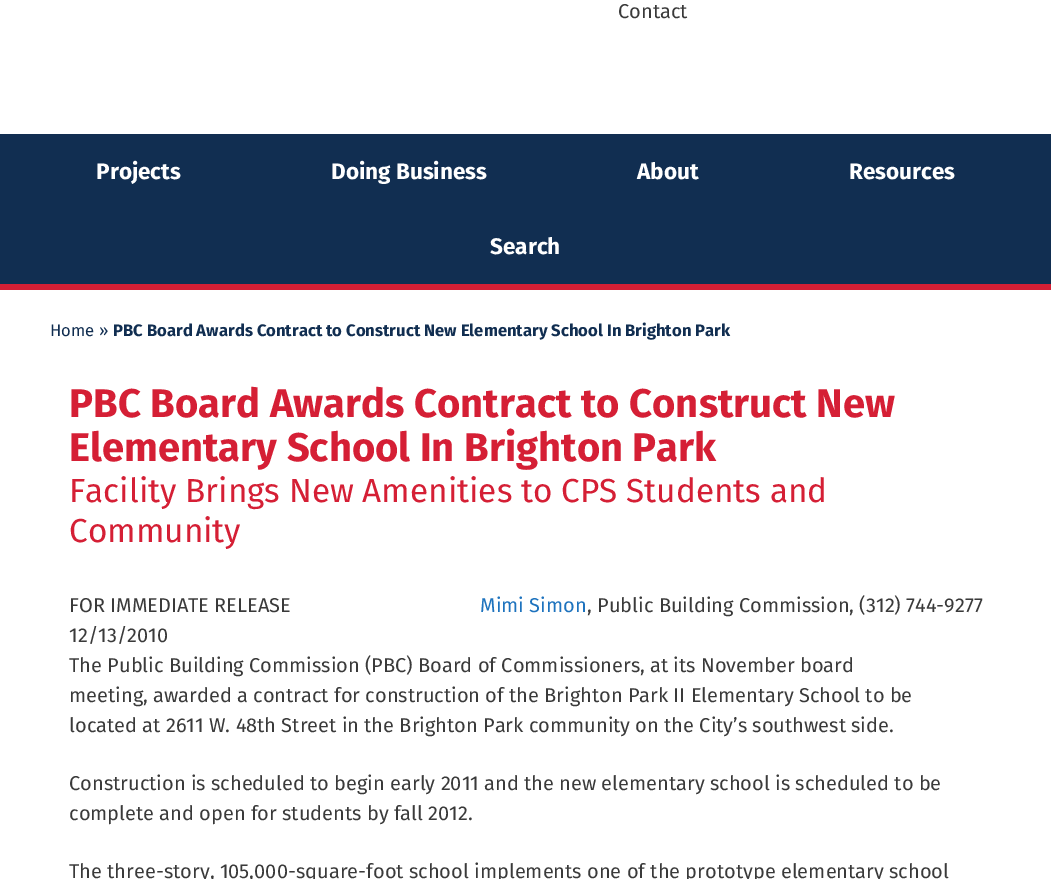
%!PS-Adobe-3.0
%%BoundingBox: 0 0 1051 879
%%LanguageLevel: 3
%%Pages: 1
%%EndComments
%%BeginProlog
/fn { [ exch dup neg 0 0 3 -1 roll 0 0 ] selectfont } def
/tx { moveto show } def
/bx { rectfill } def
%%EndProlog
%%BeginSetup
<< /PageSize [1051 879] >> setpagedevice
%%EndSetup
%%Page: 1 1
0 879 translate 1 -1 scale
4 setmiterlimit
1 setgray
0 0 1051 879 bx
/FiraSans-Regular 20 fn
0.227 setgray
(Contact) 618 18 tx
0.067 0.18 0.318 setrgbcolor
0 134 1051 150 bx
0.835 0.122 0.208 setrgbcolor
0 284 1051 6 bx
/FiraSans-Bold 22.5 fn
1 setgray
(Projects) 96 179 tx
(Doing Business) 331 179 tx
(About) 637 179 tx
(Resources) 849 179 tx
(Search) 490 254 tx
/FiraSans-Regular 16.65 fn
0.067 0.18 0.318 setrgbcolor
(Home ») 50 336 tx
/FiraSans-Bold 16.65 fn
(PBC Board Awards Contract to Construct New Elementary School In Brighton Park) 113 336 tx
/FiraSans-Bold 40 fn
0.835 0.122 0.208 setrgbcolor
(PBC Board Awards Contract to Construct New) 69 417 tx
(Elementary School In Brighton Park) 69 461 tx
/FiraSans-Regular 33.3 fn
(Facility Brings New Amenities to CPS Students and) 69 502 tx
(Community) 69 542 tx
/FiraSans-Regular 20 fn
0.227 setgray
(FOR IMMEDIATE RELEASE) 69 612 tx
(12/13/2010) 69 642 tx
0.118 0.451 0.745 setrgbcolor
(Mimi Simon) 480 612 tx
0.227 setgray
(, Public Building Commission, \(312\) 744-9277) 587 612 tx
(The Public Building Commission \(PBC\) Board of Commissioners, at its November board) 69 672 tx
(meeting, awarded a contract for construction of the Brighton Park II Elementary School to be) 69 702 tx
(located at 2611 W. 48th Street in the Brighton Park community on the City’s southwest side.) 69 732 tx
(Construction is scheduled to begin early 2011 and the new elementary school is scheduled to be) 69 790 tx
(complete and open for students by fall 2012.) 69 820 tx
(The three-story, 105,000-square-foot school implements one of the prototype elementary school) 69 878 tx
showpage
%%EOF
